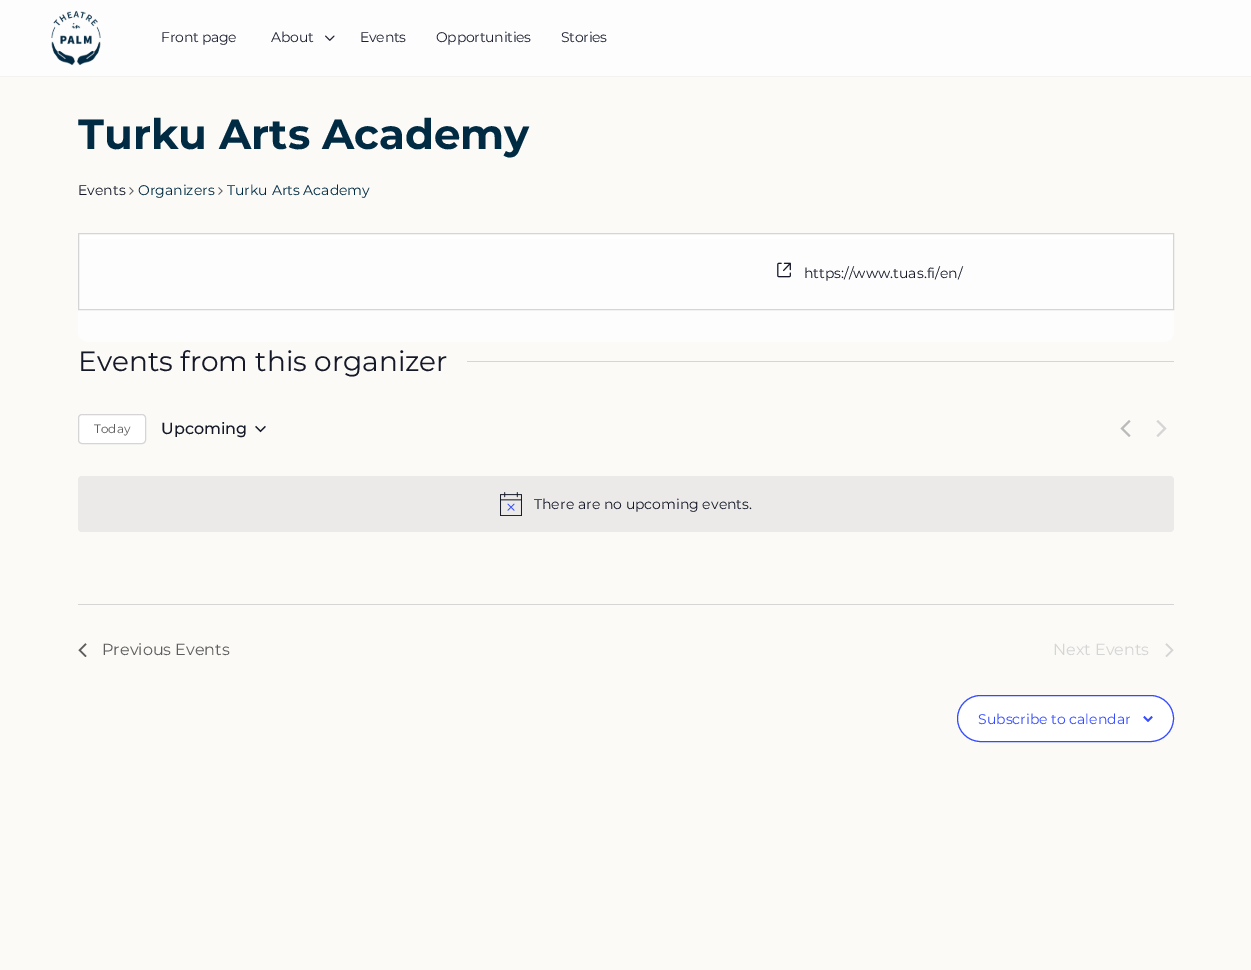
%!PS-Adobe-3.0
%%BoundingBox: 0 0 1251 970
%%LanguageLevel: 3
%%Pages: 1
%%EndComments
%%BeginProlog
/m { moveto } bind def
/f { fill } bind def
/S { stroke } bind def
/q { gsave } bind def
/Q { grestore } bind def
/fn { [ exch dup neg 0 0 3 -1 roll 0 0 ] selectfont } def
/tx { moveto show } def
/bx { rectfill } def
/rr { 5 dict begin { /r /h /w /y /x } { exch def } forall
  x r add y moveto x w add y 2 copy h add r arct x w add y h add x 1 index r arct
  x y h add x y r arct x y 2 copy exch w add exch r arct closepath end } def
/im { 5 dict begin { /h /w /y /x /name } { exch def } forall
  gsave x y translate w h scale
  w h 8 [w 0 0 h 0 0] name (r) file false 3 colorimage grestore end } def
%%EndProlog
%%BeginSetup
<< /PageSize [1251 970] >> setpagedevice
%%EndSetup
%%Page: 1 1
0 970 translate 1 -1 scale
4 setmiterlimit
0.984 0.98 0.969 setrgbcolor
0 0 1251 970 bx
0.953 0.949 0.941 setrgbcolor
0 76 1251 1 bx
0.992 setgray
0 0 1251 76 bx
(image0.raw) 51 10 50 56 im
/Montserrat-Regular 14 fn
0.118 0.129 0.196 setrgbcolor
161 42 m -0.25 0 (Front page) ashow
271 42 m -0.25 0 (About) ashow
(image1.raw) 325 35 10 6 im
360 42 m -0.25 0 (Events) ashow
436 42 m -0.25 0 (Opportunities) ashow
561 42 m -0.25 0 (Stories) ashow
/Montserrat-Bold 42 fn
0 0.169 0.263 setrgbcolor
(Turku Arts Academy) 78 149 tx
/Montserrat-Regular 14 fn
0.078 0.094 0.153 setrgbcolor
(Events) 78 195 tx
(image2.raw) 129 187 5 8 im
0 0.169 0.263 setrgbcolor
(Organizers) 138 195 tx
(image2.raw) 218 187 5 8 im
(Turku Arts Academy) 227 195 tx
0.992 setgray
78 233 1096 109 10 rr f
1 setgray
79 234 1094 5 bx
0.835 setgray
78.5 233.5 1095 76 rectstroke
(image3.raw) 777 262 14 16 im
0.078 0.094 0.153 setrgbcolor
(https://www.tuas.fi/en/) 804 278 tx
/Montserrat-Regular 28 fn
(Events from this organizer) 78 371 tx
0.835 setgray
467 361 707 1 bx
1 setgray
78.5 414.5 67 29 3.5 rr q f Q
0.835 setgray
S
/Montserrat-Regular 12 fn
0.365 setgray
(Today) 94 433 tx
/Montserrat-Medium 16 fn
0.078 0.094 0.153 setrgbcolor
(Upcoming) 161 434 tx
(image4.raw) 255 425 11 8 im
(image5.raw) 1120 420 11 17 im
(image6.raw) 1156 420 11 17 im
0.922 0.918 0.91 setrgbcolor
78 476 1096 56 4 rr f
(image7.raw) 500 492 22 24 im
/Montserrat-Regular 14 fn
0.078 0.094 0.153 setrgbcolor
(There are no upcoming events.) 534 509 tx
0.835 setgray
78 604 1096 1 bx
(image8.raw) 78 643 9 14 im
/Montserrat-Regular 16 fn
0.365 setgray
(Previous Events) 102 655 tx
0.835 setgray
(Next Events) 1053 655 tx
(image9.raw) 1165 643 9 14 im
1 setgray
957.5 695.5 216 46 23 rr q f Q
0.2 0.29 1 setrgbcolor
S
/Montserrat-Regular 14 fn
(Subscribe to calendar) 978 724 tx
(image10.raw) 1143 716 10 6 im
showpage
%%EOF
